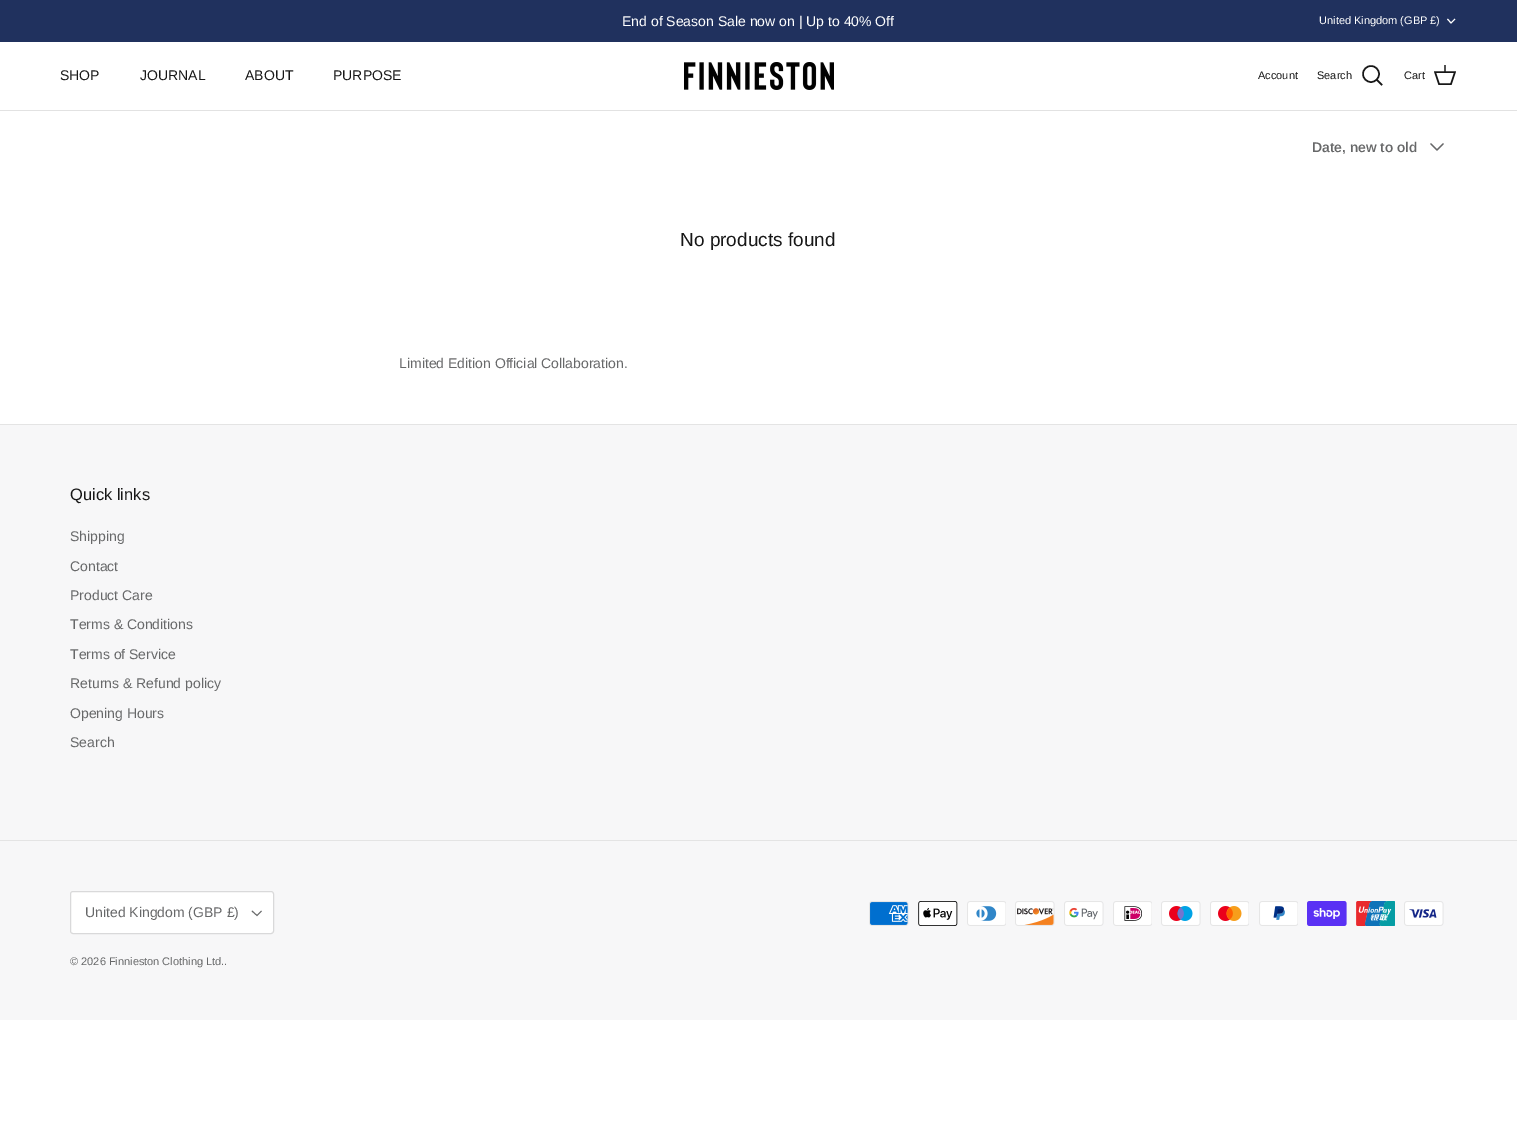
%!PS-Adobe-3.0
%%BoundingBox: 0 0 1517 1136
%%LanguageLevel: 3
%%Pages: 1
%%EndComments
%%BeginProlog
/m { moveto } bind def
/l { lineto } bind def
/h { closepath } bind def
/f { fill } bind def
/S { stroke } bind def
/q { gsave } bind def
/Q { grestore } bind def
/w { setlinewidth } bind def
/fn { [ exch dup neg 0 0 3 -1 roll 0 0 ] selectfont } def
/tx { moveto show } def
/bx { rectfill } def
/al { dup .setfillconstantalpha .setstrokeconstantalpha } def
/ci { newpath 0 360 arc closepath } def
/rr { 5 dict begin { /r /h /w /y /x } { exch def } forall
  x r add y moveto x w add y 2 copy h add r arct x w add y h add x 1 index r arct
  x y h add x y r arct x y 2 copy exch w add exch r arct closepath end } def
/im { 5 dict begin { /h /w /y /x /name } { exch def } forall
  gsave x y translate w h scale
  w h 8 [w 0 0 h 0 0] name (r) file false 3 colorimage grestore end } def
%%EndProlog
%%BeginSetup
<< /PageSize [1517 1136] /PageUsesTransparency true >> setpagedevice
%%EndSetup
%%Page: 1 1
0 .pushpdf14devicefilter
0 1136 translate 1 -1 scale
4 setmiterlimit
1 setgray
0 0 1517 1136 bx
0.125 0.192 0.369 setrgbcolor
0 0 1517 42 bx
/Arimo-Regular 14 fn
1 setgray
(End of Season Sale now on | Up to 40% Off) 622 26 tx
/Arimo-Regular 11 fn
(United Kingdom \(GBP £\)) 1319 24 tx
1455 19 m 1451 23 l 1447.5 19 l S
0.886 setgray
0 110 1517 1 bx
/Arimo-Regular 14 fn
0.09 setgray
(SHOP) 60 80 tx
(JOURNAL) 140 80 tx
(ABOUT) 245 80 tx
(PURPOSE) 333 80 tx
(image0.raw) 684 62 150 28 im
/Arimo-Regular 11 fn
(Account) 1258 79 tx
(Search) 1317 79 tx
1.5 w
1371 74 8 ci S
2 setlinecap
1377 80 m 1381.5 84.5 l S
(Cart) 1404 79 tx
0 setlinecap
1435 72 m 1455 72 l 1451 84 l 1439 84 l h S
0.75 al
1444 65 2 8 bx
/Arimo-SemiBold 14 fn
1 al
0.404 0.408 0.412 setrgbcolor
(Date, new to old) 1312 152 tx
1.3 w
1 setlinecap
1 setlinejoin
1431 144 m 1437 150 l 1443 144 l S
/Arimo-Regular 19 fn
0.09 setgray
(No products found) 680 246 tx
/Arimo-Regular 14 fn
0.404 0.408 0.412 setrgbcolor
(Limited Edition Official Collaboration.) 399 368 tx
0.969 0.969 0.973 setrgbcolor
0 425 1517 595 bx
0.894 setgray
0 424 1517 1 bx
/Arimo-Regular 16.5 fn
0.09 setgray
(Quick links) 70 500 tx
/Arimo-Regular 14 fn
0.404 0.408 0.412 setrgbcolor
(Shipping) 70 541 tx
(Contact) 70 571 tx
(Product Care) 70 600 tx
(Terms & Conditions) 70 629 tx
(Terms of Service) 70 659 tx
(Returns & Refund policy) 70 688 tx
(Opening Hours) 70 718 tx
(Search) 70 747 tx
0.894 setgray
0 840 1517 1 bx
1 setgray
70.5 891.5 203 42 2.5 rr q f Q
0.851 0.851 0.855 setrgbcolor
1 w
0 setlinecap
0 setlinejoin
S
0.404 0.408 0.412 setrgbcolor
(United Kingdom \(GBP £\)) 85 917 tx
0.9 w
261.5 911 m 257 915.5 l 252 911 l S
/Arimo-Regular 11 fn
(© 2026 Finnieston Clothing Ltd..) 70 965 tx
(image1.raw) 869 901 40 25 im
(image2.raw) 918 901 40 25 im
(image3.raw) 967 901 39 25 im
(image4.raw) 1015 901 40 25 im
(image5.raw) 1064 901 40 25 im
(image6.raw) 1113 901 39 25 im
(image7.raw) 1161 901 40 25 im
(image8.raw) 1210 901 39 25 im
(image9.raw) 1259 901 39 25 im
(image10.raw) 1307 901 40 25 im
(image11.raw) 1356 901 39 25 im
(image12.raw) 1404 901 40 25 im
.poppdf14devicefilter showpage
%%EOF
